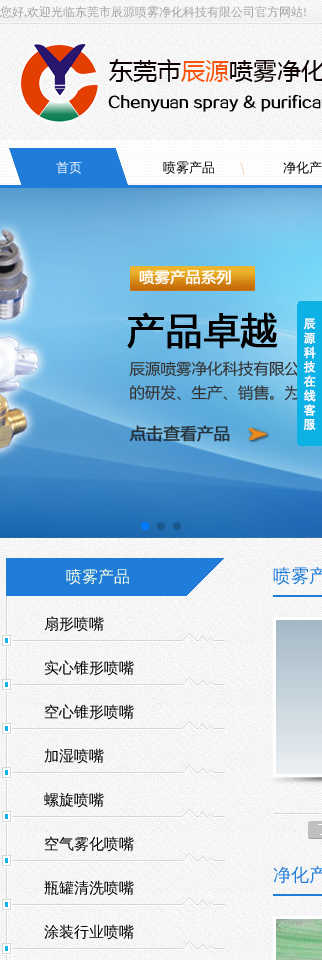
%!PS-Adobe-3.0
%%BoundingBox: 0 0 322 960
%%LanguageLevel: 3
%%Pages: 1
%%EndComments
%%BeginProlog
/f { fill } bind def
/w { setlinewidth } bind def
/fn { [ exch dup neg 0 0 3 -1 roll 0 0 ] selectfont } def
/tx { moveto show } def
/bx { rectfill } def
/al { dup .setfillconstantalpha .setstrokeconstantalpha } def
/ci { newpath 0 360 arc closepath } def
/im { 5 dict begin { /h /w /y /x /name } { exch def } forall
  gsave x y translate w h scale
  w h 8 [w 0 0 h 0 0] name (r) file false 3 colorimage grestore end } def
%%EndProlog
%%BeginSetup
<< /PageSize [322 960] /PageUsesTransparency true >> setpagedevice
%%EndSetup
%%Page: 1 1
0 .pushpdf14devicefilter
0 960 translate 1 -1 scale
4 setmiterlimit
1 setgray
0 0 322 960 bx
(image0.raw) 0 538 322 422 im
(image1.raw) 0 0 322 188 im
/WenQuanYiZenHei-Medium 12 fn
0.643 setgray
(您好) 0 16 tx
/LiberationSerif-Regular 12 fn
(,) 24 16 tx
/WenQuanYiZenHei-Medium 12 fn
(欢迎光临东莞市辰源喷雾净化科技有限公司官方网站) 27 16 tx
/LiberationSerif-Regular 12 fn
(!) 303 16 tx
(image2.raw) 19 42 303 82 im
(image3.raw) 9 148 120 40 im
/WenQuanYiZenHei-Medium 13 fn
1 setgray
(首页) 56 172 tx
(image4.raw) 240 162 5 13 im
0 setgray
(喷雾产品) 163 172 tx
(净化产) 283 172 tx
(image5.raw) 0 188 322 350 im
0 0.478 1 setrgbcolor
145 526 4 ci f
0.2 al
0 setgray
161 526 4 ci f
177 526 4 ci f
1 al
(image6.raw) 297 301 25 145 im
(image7.raw) 6 558 218 38 im
/WenQuanYiZenHei-Medium 16 fn
0.969 1 0.89 setrgbcolor
(喷雾产品) 66 582 tx
(image8.raw) 6 596 2 364 im
(image9.raw) 2 633 223 14 im
/WenQuanYiZenHei-Medium 15 fn
0 setgray
(扇形喷嘴) 44 629 tx
(image9.raw) 2 677 223 14 im
(实心锥形喷嘴) 44 673 tx
(image9.raw) 2 721 223 14 im
(空心锥形喷嘴) 44 717 tx
(image9.raw) 2 765 223 14 im
(加湿喷嘴) 44 761 tx
(image9.raw) 2 809 223 14 im
(螺旋喷嘴) 44 805 tx
(image9.raw) 2 853 223 14 im
(空气雾化喷嘴) 44 849 tx
(image9.raw) 2 897 223 14 im
(瓶罐清洗喷嘴) 44 893 tx
(image9.raw) 2 941 223 14 im
(涂装行业喷嘴) 44 937 tx
0.122 0.486 0.851 setrgbcolor
273 595 49 2 bx
/WenQuanYiZenHei-Medium 18 fn
(喷雾产) 273 582 tx
(image10.raw) 273 777 49 9 im
1 setgray
3 w
274.5 618.5 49 157 rectstroke
(image11.raw) 276 620 46 154 im
(image12.raw) 273 813 49 2 im
(image13.raw) 308 821 14 18 im
0.122 0.486 0.851 setrgbcolor
273 894 49 2 bx
(净化产) 273 881 tx
1 setgray
274.5 917.5 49 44 rectstroke
(image14.raw) 276 919 46 41 im
.poppdf14devicefilter showpage
%%EOF
